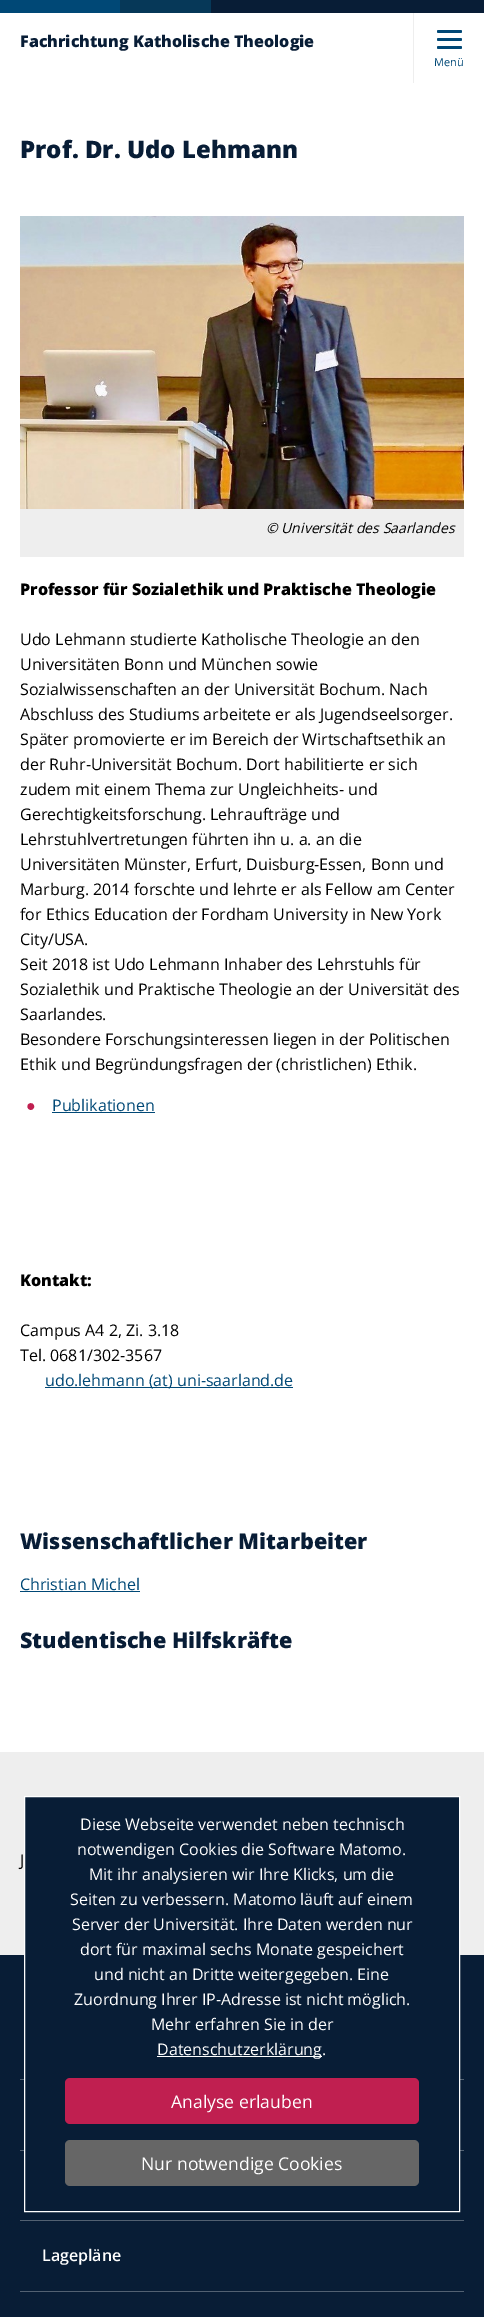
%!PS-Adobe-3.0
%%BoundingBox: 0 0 484 2317
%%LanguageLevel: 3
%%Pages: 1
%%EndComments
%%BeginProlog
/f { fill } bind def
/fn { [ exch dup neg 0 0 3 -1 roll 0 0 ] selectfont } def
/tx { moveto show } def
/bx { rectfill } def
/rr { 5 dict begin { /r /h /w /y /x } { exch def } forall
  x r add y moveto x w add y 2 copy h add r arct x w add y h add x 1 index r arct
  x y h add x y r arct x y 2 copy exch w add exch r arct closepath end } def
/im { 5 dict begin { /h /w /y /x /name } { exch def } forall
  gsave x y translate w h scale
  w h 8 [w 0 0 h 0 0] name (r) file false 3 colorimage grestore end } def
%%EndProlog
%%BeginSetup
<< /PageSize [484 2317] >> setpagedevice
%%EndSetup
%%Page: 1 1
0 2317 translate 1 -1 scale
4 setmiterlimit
1 setgray
0 0 484 2317 bx
0.031 0.114 0.212 setrgbcolor
211 0 273 13 bx
0 0.282 0.463 setrgbcolor
0 0 120 13 bx
0.024 0.22 0.345 setrgbcolor
120 0 91 13 bx
/OpenSans-ExtraBold 16 fn
0.031 0.114 0.212 setrgbcolor
(Fachrichtung Katholische Theologie) 20 47 tx
0.933 setgray
413 13 1 70 bx
0 0.282 0.463 setrgbcolor
437 30 25 3 1.5 rr f
437 38 25 3 1.5 rr f
437 46 25 3 1.5 rr f
/OpenSans-Regular 11 fn
(Menü) 434 66 tx
/OpenSans-ExtraBold 24 fn
0.031 0.114 0.212 setrgbcolor
(Prof. Dr. Udo Lehmann) 20 158 tx
(image0.raw) 20 216 444 293 im
0.933 setgray
20 509 444 48 bx
/OpenSans-Italic 14 fn
0 setgray
(© Universität des Saarlandes) 266 533 tx
/OpenSans-ExtraBold 16 fn
(Professor für Sozialethik und Praktische Theologie) 20 595 tx
/OpenSans-Regular 16 fn
(Udo Lehmann studierte Katholische Theologie an den) 20 645 tx
(Universitäten Bonn und München sowie) 20 670 tx
(Sozialwissenschaften an der Universität Bochum. Nach) 20 695 tx
(Abschluss des Studiums arbeitete er als Jugendseelsorger.) 20 720 tx
(Später promovierte er im Bereich der Wirtschaftsethik an) 20 745 tx
(der Ruhr-Universität Bochum. Dort habilitierte er sich) 20 770 tx
(zudem mit einem Thema zur Ungleichheits- und) 20 795 tx
(Gerechtigkeitsforschung. Lehraufträge und) 20 820 tx
(Lehrstuhlvertretungen führten ihn u. a. an die) 20 845 tx
(Universitäten Münster, Erfurt, Duisburg-Essen, Bonn und) 20 870 tx
(Marburg. 2014 forschte und lehrte er als Fellow am Center) 20 895 tx
(for Ethics Education der Fordham University in New York) 20 920 tx
(City/USA.) 20 945 tx
(Seit 2018 ist Udo Lehmann Inhaber des Lehrstuhls für) 20 970 tx
(Sozialethik und Praktische Theologie an der Universität des) 20 995 tx
(Saarlandes.) 20 1020 tx
(Besondere Forschungsinteressen liegen in der Politischen) 20 1045 tx
(Ethik und Begründungsfragen der \(christlichen\) Ethik.) 20 1070 tx
/LiberationSans-Regular 16 fn
0.753 0.122 0.314 setrgbcolor
(●) 26 1111 tx
/OpenSans-Regular 16 fn
0 0.282 0.463 setrgbcolor
(Publikationen) 52 1111 tx
52 1112 103 1 bx
/OpenSans-ExtraBold 16 fn
0 setgray
(Kontakt:) 20 1286 tx
/OpenSans-Regular 16 fn
(Campus A4 2, Zi. 3.18) 20 1336 tx
(Tel. 0681/302-3567) 20 1361 tx
0 0.282 0.463 setrgbcolor
45 1387 248 1 bx
(udo.lehmann \(at\) uni-saarland.de) 45 1386 tx
/OpenSans-ExtraBold 21.6 fn
0.031 0.114 0.212 setrgbcolor
(Wissenschaftlicher Mitarbeiter) 20 1549 tx
/OpenSans-Regular 16 fn
0 0.282 0.463 setrgbcolor
(Christian Michel) 20 1590 tx
20 1591 120 1 bx
/OpenSans-ExtraBold 21.6 fn
0.031 0.114 0.212 setrgbcolor
(Studentische Hilfskräfte) 20 1648 tx
0.933 setgray
0 1752 484 203 bx
/OpenSans-Regular 16 fn
0 setgray
(J) 20 1866 tx
0.031 0.114 0.212 setrgbcolor
0 1955 484 362 bx
0.322 0.38 0.447 setrgbcolor
20 2079 444 1 bx
20 2150 444 1 bx
0.031 0.114 0.212 setrgbcolor
25 1797 434 354 bx
1 setgray
24.5 1796.5 435 415 rectstroke
(Diese Webseite verwendet neben technisch) 80 1830 tx
(notwendigen Cookies die Software Matomo.) 77 1855 tx
(Mit ihr analysieren wir Ihre Klicks, um die) 89 1880 tx
(Seiten zu verbessern. Matomo läuft auf einem) 70 1905 tx
(Server der Universität. Ihre Daten werden nur) 72 1930 tx
(dort für maximal sechs Monate gespeichert) 80 1955 tx
(und nicht an Dritte weitergegeben. Eine) 94 1980 tx
(Zuordnung Ihrer IP-Adresse ist nicht möglich.) 74 2005 tx
(Mehr erfahren Sie in der) 151 2030 tx
157 2056 165 1 bx
(Datenschutzerklärung.) 157 2055 tx
0.753 0.122 0.314 setrgbcolor
65 2078 354 46 5 rr f
/OpenSans-Regular 17.6 fn
1 setgray
(Analyse erlauben) 171 2108 tx
0.4 setgray
65 2140 354 46 5 rr f
1 setgray
(Nur notwendige Cookies) 141 2170 tx
0.322 0.38 0.447 setrgbcolor
20 2220 444 1 bx
/OpenSans-SemiBold 16 fn
1 setgray
(Lagepläne) 42 2261 tx
0.322 0.38 0.447 setrgbcolor
20 2291 444 1 bx
showpage
%%EOF
